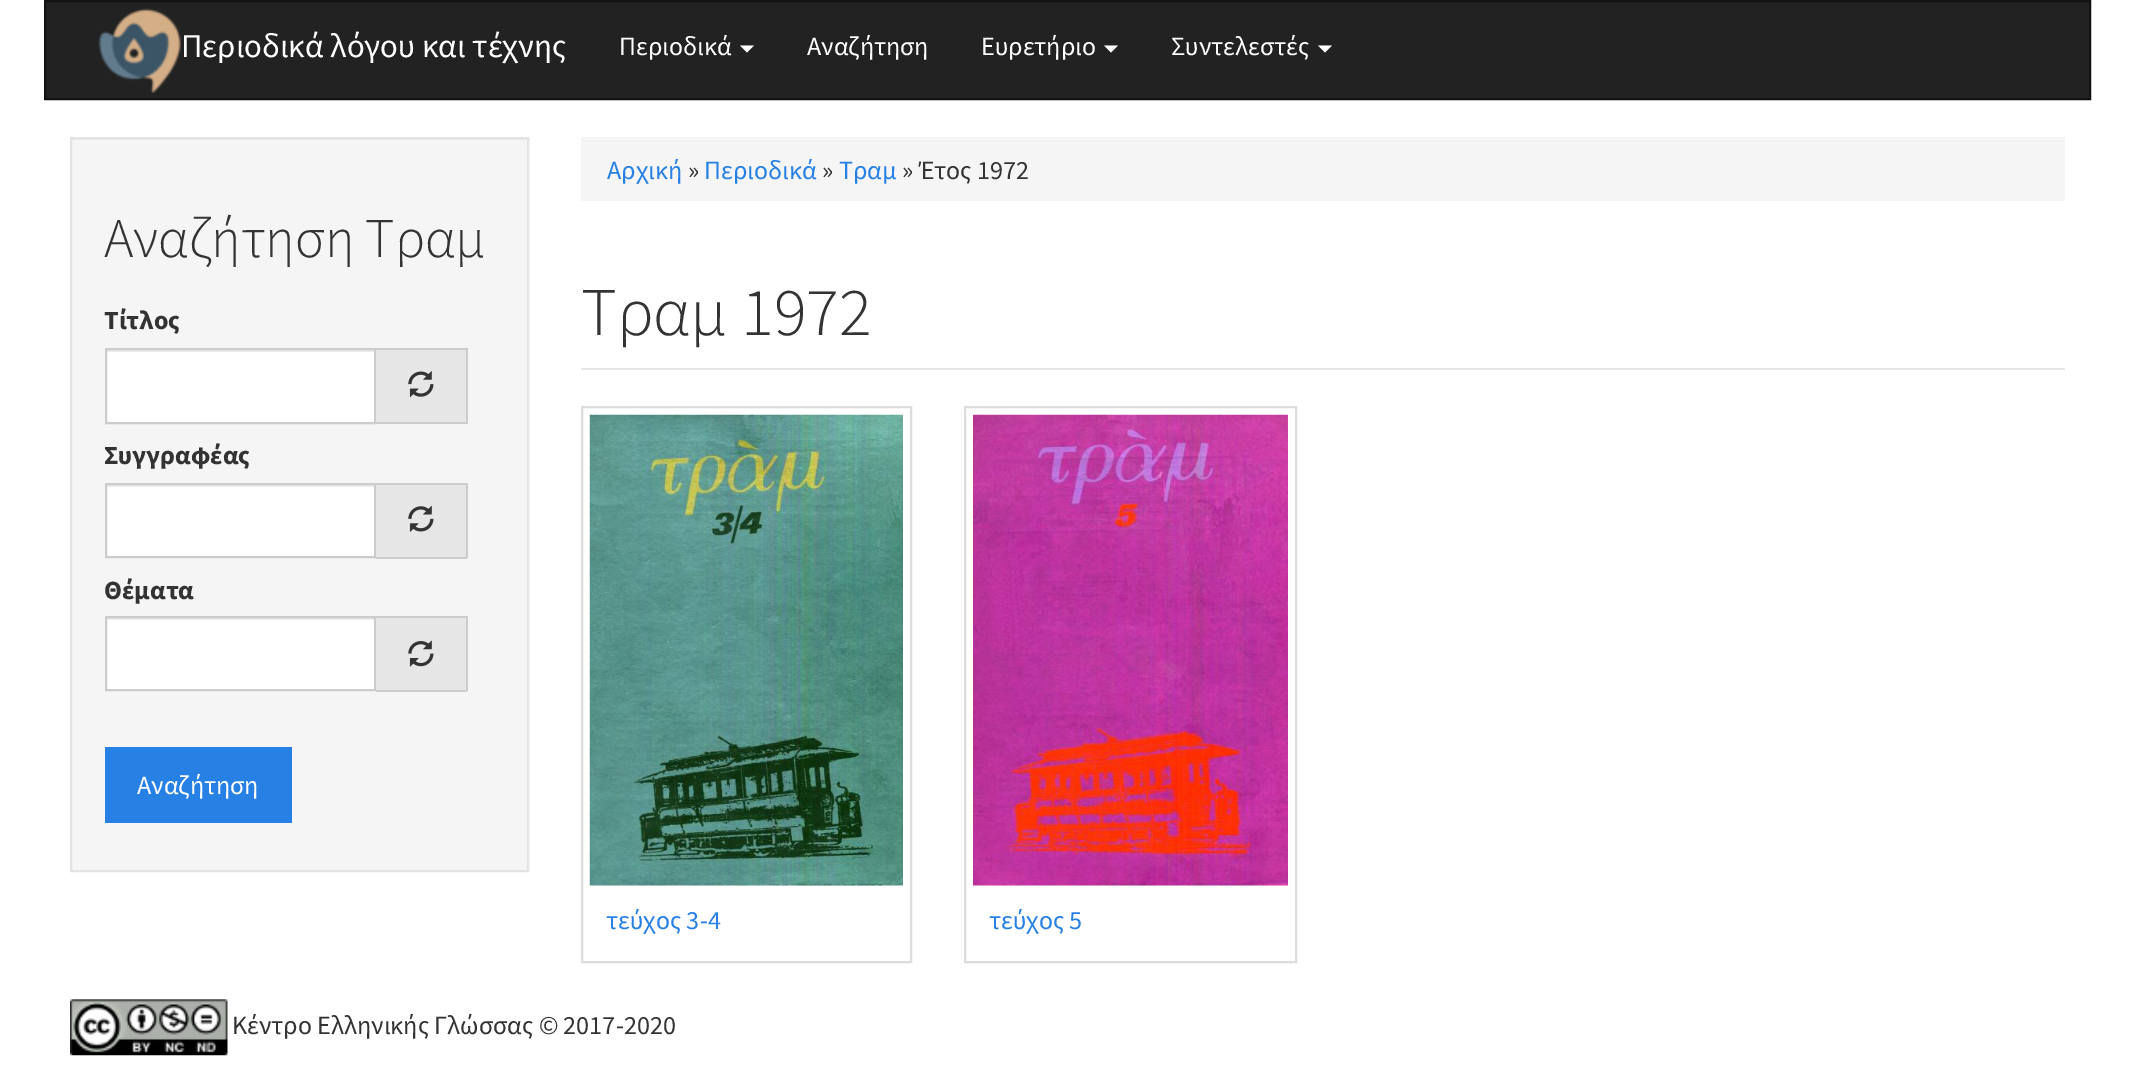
%!PS-Adobe-3.0
%%BoundingBox: 0 0 2133 1075
%%LanguageLevel: 3
%%Pages: 1
%%EndComments
%%BeginProlog
/m { moveto } bind def
/l { lineto } bind def
/h { closepath } bind def
/f { fill } bind def
/S { stroke } bind def
/q { gsave } bind def
/Q { grestore } bind def
/w { setlinewidth } bind def
/fn { [ exch dup neg 0 0 3 -1 roll 0 0 ] selectfont } def
/tx { moveto show } def
/bx { rectfill } def
/im { 5 dict begin { /h /w /y /x /name } { exch def } forall
  gsave x y translate w h scale
  w h 8 [w 0 0 h 0 0] name (r) file false 3 colorimage grestore end } def
%%EndProlog
%%BeginSetup
<< /PageSize [2133 1075] >> setpagedevice
%%EndSetup
%%Page: 1 1
0 1075 translate 1 -1 scale
4 setmiterlimit
1 setgray
0 0 2133 1075 bx
0.133 setgray
45 1 m 2090 1 l 2090 99 l 45 99 l h q f Q
0.071 setgray
2 w
S
(image0.raw) 98 8 84 85 im
/SourceSansPro-Regular 33.25 fn
1 setgray
(Περιοδικά λόγου και τέχνης) 181 57 tx
/SourceSansPro-Regular 26.25 fn
(Περιοδικά) 619 55 tx
740 45.5 m 754 45.5 l 747 52.5 l h f
(Αναζήτηση) 807 55 tx
(Ευρετήριο) 981 55 tx
1104 45.5 m 1118 45.5 l 1111 52.5 l h f
(Συντελεστές) 1171 55 tx
1318 45.5 m 1332 45.5 l 1325 52.5 l h f
0.961 setgray
72 140 455 730 bx
0.914 setgray
72 139 455 1 bx
0.89 setgray
71 138 457 733 rectstroke
/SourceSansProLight-Light 56 fn
0.2 setgray
(Αναζήτηση Τραμ) 104 257 tx
/SourceSansPro-Bold 26.25 fn
(Τίτλος) 104 329 tx
1 setgray
107 352 267 70 bx
0.925 setgray
107 350 268 2 bx
0.8 setgray
106 349 269 74 rectstroke
0.902 setgray
376 350 90 72 bx
0.8 setgray
376 348 91 2 bx
466 348 2 76 bx
376 422 91 2 bx
(image1.raw) 408 371 26 27 im
0.2 setgray
(Συγγραφέας) 104 464 tx
1 setgray
107 487 267 69 bx
0.925 setgray
107 485 268 2 bx
0.8 setgray
106 484 269 73 rectstroke
0.902 setgray
376 485 90 72 bx
0.8 setgray
376 483 91 2 bx
466 483 2 75 bx
376 557 91 2 bx
(image2.raw) 408 505 26 27 im
0.2 setgray
(Θέματα) 104 599 tx
1 setgray
107 620 267 69 bx
0.925 setgray
107 618 268 2 bx
0.8 setgray
106 617 269 73 rectstroke
0.902 setgray
376 618 90 72 bx
0.8 setgray
376 616 91 2 bx
466 616 2 75 bx
376 690 91 2 bx
(image3.raw) 408 640 26 27 im
0.153 0.502 0.89 setrgbcolor
105 747 187 76 bx
/SourceSansPro-Regular 26.25 fn
1 setgray
(Αναζήτηση) 137 794 tx
0.961 setgray
581 137 1484 64 bx
0.153 0.502 0.89 setrgbcolor
(Αρχική) 607 179 tx
0.2 setgray
(») 688 179 tx
0.153 0.502 0.89 setrgbcolor
(Περιοδικά) 704 179 tx
0.2 setgray
(») 822 179 tx
0.153 0.502 0.89 setrgbcolor
(Τραμ) 839 179 tx
0.2 setgray
(» Έτος 1972) 902 179 tx
0.902 setgray
581 368 1484 2 bx
/SourceSansProLight-Light 68.25 fn
0.2 setgray
(Τραμ 1972) 581 335 tx
0.867 setgray
582 407 329 555 rectstroke
(image4.raw) 589 414 314 472 im
/SourceSansPro-Regular 26.25 fn
0.153 0.502 0.89 setrgbcolor
(τεύχος 3-4) 606 929 tx
0.867 setgray
965 407 331 555 rectstroke
(image5.raw) 973 414 315 472 im
0.153 0.502 0.89 setrgbcolor
(τεύχος 5) 989 929 tx
(image6.raw) 70 999 158 57 im
0.2 setgray
(Κέντρο Ελληνικής Γλώσσας © 2017-2020) 232 1034 tx
showpage
%%EOF
